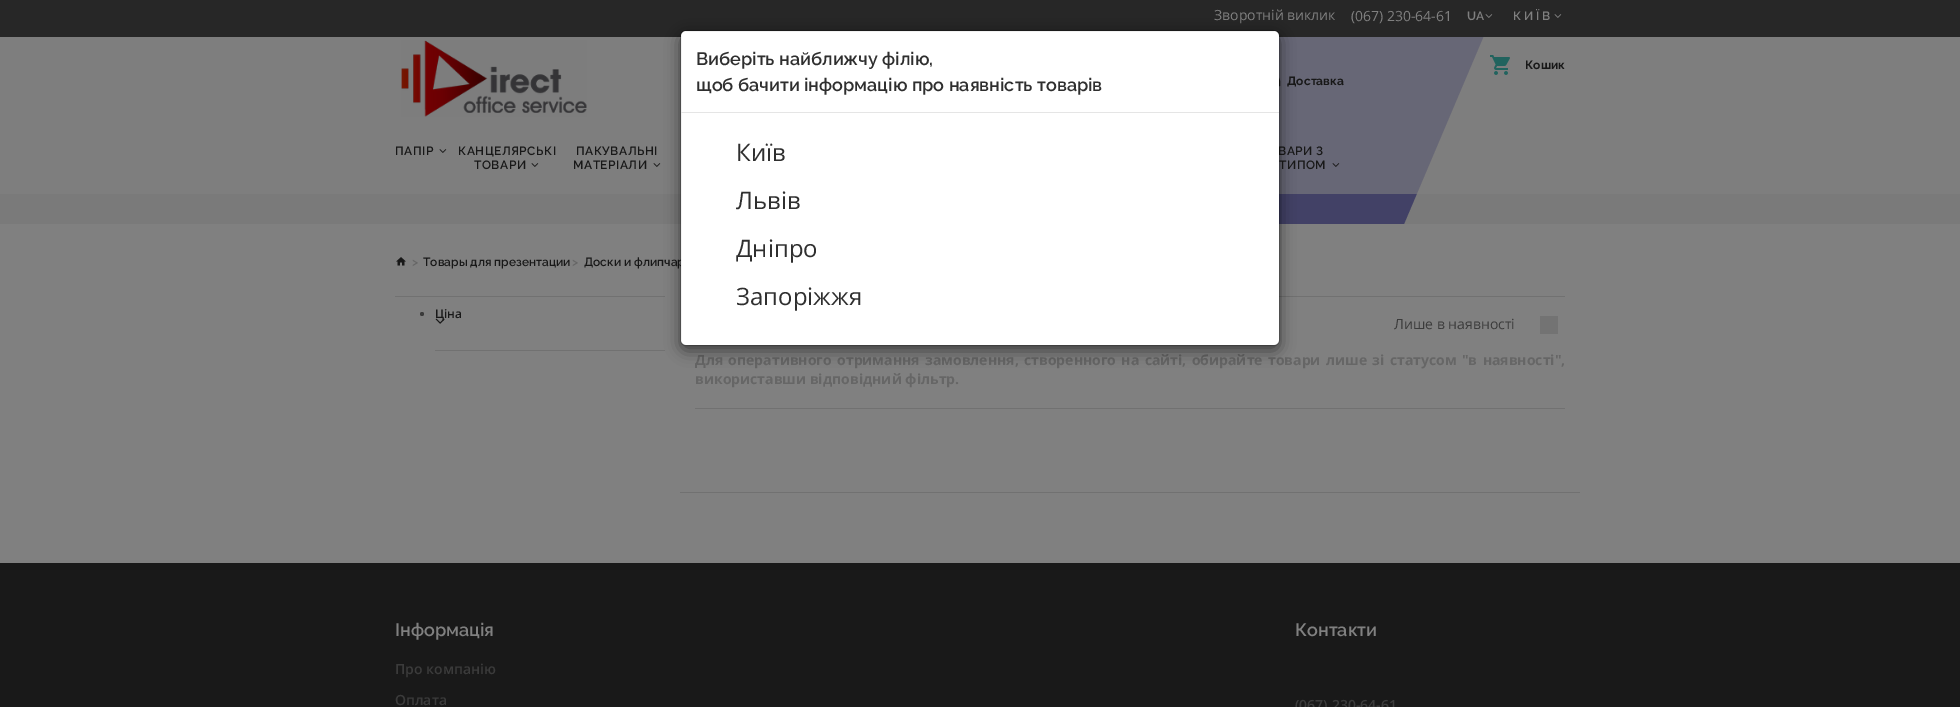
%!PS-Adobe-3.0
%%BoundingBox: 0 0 1960 707
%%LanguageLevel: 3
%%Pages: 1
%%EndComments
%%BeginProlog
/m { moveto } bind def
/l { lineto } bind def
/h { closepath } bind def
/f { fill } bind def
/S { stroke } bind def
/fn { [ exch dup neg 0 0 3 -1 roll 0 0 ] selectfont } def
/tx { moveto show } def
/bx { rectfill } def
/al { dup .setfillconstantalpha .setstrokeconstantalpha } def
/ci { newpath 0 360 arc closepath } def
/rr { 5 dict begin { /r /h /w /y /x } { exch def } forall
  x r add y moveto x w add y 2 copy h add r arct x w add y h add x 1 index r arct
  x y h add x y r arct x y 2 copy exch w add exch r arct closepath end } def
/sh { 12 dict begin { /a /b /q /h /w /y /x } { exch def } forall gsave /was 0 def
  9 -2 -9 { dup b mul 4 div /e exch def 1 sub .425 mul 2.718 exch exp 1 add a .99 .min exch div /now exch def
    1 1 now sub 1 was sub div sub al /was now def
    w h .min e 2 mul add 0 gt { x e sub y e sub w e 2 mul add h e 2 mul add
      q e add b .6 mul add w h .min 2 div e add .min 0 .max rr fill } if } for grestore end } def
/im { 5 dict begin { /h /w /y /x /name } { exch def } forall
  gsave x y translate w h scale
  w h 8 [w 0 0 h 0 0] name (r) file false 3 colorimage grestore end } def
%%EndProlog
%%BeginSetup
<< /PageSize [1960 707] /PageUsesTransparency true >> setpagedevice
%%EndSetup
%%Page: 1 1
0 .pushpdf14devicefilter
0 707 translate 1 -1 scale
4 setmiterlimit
0.502 setgray
0 0 1960 707 bx
0.478 setgray
0 37 1960 187 bx
0.259 0.255 0.4 setrgbcolor
1194 -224 m 1594 -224 l 1404 224 l 1004 224 l h f
0.153 setgray
0 0 1960 37 bx
/OpenSans-Regular 14 fn
0.502 setgray
(Зворотній виклик) 1214 20 tx
(\(067\) 230-64-61) 1351 21 tx
/Raleway-SemiBold 12 fn
(UA) 1467 20 tx
(image0.raw) 1485 14 8 4 im
1513 20 m 3 0 (КИЇВ) ashow
(image0.raw) 1554 14 8 4 im
0.6 al
0 37 1960 157 bx
1 al
(image1.raw) 401 40 186 77 im
(image2.raw) 1490 55 20 20 im
/Raleway-Bold 12 fn
0.094 setgray
(Кошик) 1525 69 tx
(image3.raw) 1279 77 2 10 im
(Доставка) 1287 85 tx
/Raleway-SemiBold 12 fn
395 155 m 0.5 0 (ПАПІР) ashow
(image4.raw) 439 149 8 4 im
458 155 m 0.5 0 (КАНЦЕЛЯРСЬКІ) ashow
474 169 m 0.5 0 (ТОВАРИ) ashow
(image4.raw) 531 163 8 4 im
576 155 m 0.5 0 (ПАКУВАЛЬНІ) ashow
573 169 m 0.5 0 (МАТЕРІАЛИ) ashow
(image4.raw) 653 163 8 4 im
1278 155 m 0.5 0 (ВАРИ З) ashow
1279 169 m 0.5 0 (ТИПОМ) ashow
(image5.raw) 1332 163 8 4 im
(image6.raw) 396 257 10 9 im
0.4 setgray
(>) 412 266 tx
0.094 setgray
(Товары для презентации) 423 266 tx
0.4 setgray
(>) 572 266 tx
0.094 setgray
(Доски и флипчар) 584 266 tx
0.443 setgray
395 296 270 1 bx
0.231 setgray
422 314 2 ci f
0.443 setgray
435 350 230 1 bx
/OpenSans-SemiBold 12 fn
0.094 setgray
(Ціна) 435 318 tx
(image7.raw) 435 318 10 6 im
0.443 setgray
1279 296 286 1 bx
695 408 870 1 bx
/OpenSans-Regular 14 fn
0.231 setgray
(Лише в наявності) 1394 329 tx
0.451 setgray
1540 316 18 18 bx
/OpenSans-Bold 14 fn
0.4 setgray
695 365 m 1.75 0 32 (Для оперативного отримання замовлення, створенного на сайті, обирайте товари лише зі статусом "в наявності",) widthshow
(використавши відповідний фільтр.) 695 384 tx
0.443 setgray
680 492 900 1 bx
0.098 setgray
0 563 1960 144 bx
/Raleway-SemiBold 18 fn
0.502 setgray
(Інформація) 395 636 tx
/OpenSans-SemiBold 14 fn
0.231 setgray
(Про компанію) 395 674 tx
(Оплата) 395 705 tx
/Raleway-SemiBold 18 fn
0.502 setgray
(Контакти) 1295 636 tx
/OpenSans-SemiBold 14 fn
0.231 setgray
(\(067\) 230-64-61) 1295 710 tx
0 setgray
680 35 600 316 6 7.5 0.5 sh
1 setgray
681 31 598 314 5 rr f
0.2 al
0 setgray
680.5 30.5 599 315 5.5 rr S
1 al
0.898 setgray
681 112 598 1 bx
/Raleway-SemiBold 18 fn
0.184 setgray
(Виберіть найближчу філію,) 696 65 tx
(щоб бачити інформацію про наявність товарів) 696 91 tx
/OpenSans-Regular 24 fn
(Київ) 736 161 tx
(Львів) 736 209 tx
(Дніпро) 736 257 tx
(Запоріжжя) 736 305 tx
.poppdf14devicefilter showpage
%%EOF
